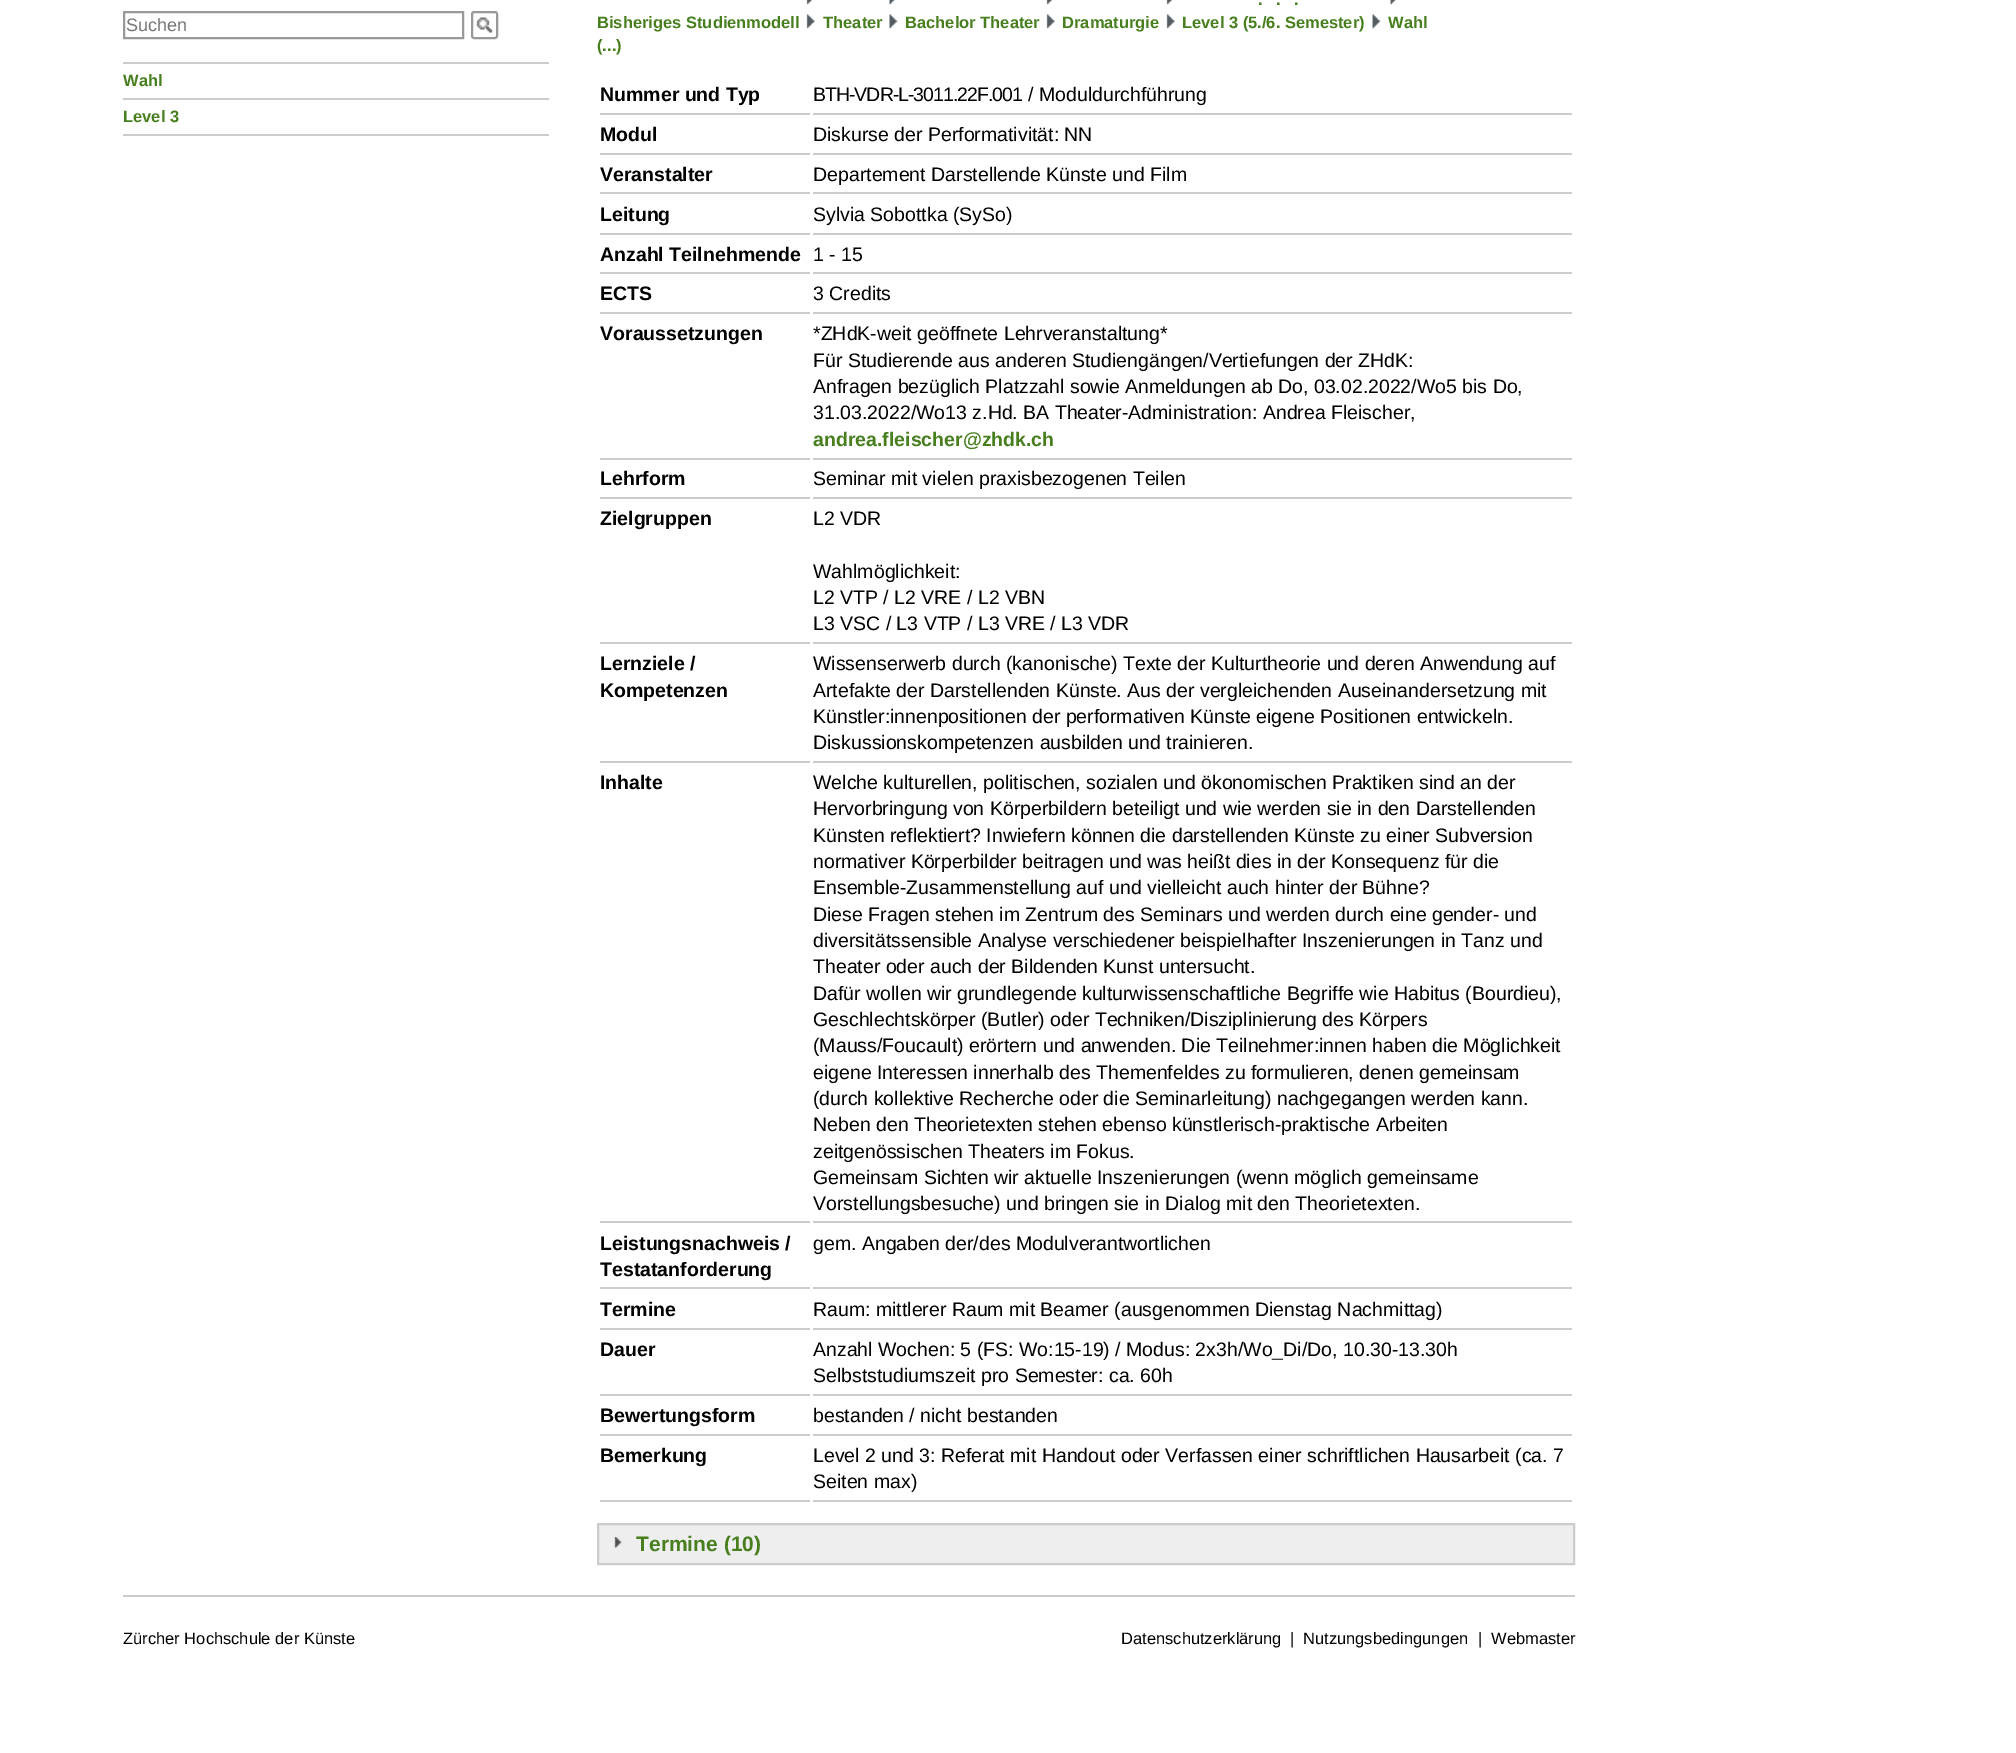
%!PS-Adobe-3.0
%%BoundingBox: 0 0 2016 1753
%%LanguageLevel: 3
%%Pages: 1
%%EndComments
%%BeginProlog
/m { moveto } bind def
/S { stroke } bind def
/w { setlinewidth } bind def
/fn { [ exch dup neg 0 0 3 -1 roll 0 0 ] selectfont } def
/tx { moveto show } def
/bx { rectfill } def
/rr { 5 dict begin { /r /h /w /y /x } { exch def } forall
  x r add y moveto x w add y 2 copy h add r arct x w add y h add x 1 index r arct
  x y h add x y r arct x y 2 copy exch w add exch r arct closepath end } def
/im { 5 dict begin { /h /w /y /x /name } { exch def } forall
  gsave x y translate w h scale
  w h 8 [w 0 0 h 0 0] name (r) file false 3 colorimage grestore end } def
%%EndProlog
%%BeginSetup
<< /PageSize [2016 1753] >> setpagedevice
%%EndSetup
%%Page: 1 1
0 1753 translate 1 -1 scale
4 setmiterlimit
1 setgray
0 0 2016 1753 bx
0.6 setgray
2 w
124 12 339 26 rectstroke
/LiberationSans-Regular 18 fn
0.459 setgray
(Suchen) 126 31 tx
(image0.raw) 476 17 17 16 im
0.6 setgray
472 12 25 26 2 rr S
0.8 setgray
123 62 426 2 bx
123 98 426 2 bx
/LiberationSans-Bold 16.5 fn
0.278 0.494 0.118 setrgbcolor
(Wahl) 123 86 tx
0.8 setgray
123 134 426 2 bx
0.278 0.494 0.118 setrgbcolor
(Level 3) 123 122 tx
(image1.raw) 806 0 6 5 im
(image2.raw) 889 0 6 5 im
(image3.raw) 1046 0 6 5 im
(image3.raw) 1166 0 6 5 im
(.) 1258 5 tx
(.) 1276 5 tx
(.) 1294 5 tx
(image4.raw) 1390 0 6 5 im
(Bisheriges Studienmodell) 597 28 tx
(image5.raw) 806 14 9 15 im
(Theater) 823 28 tx
(image6.raw) 889 14 9 15 im
(Bachelor Theater) 905 28 tx
(image7.raw) 1046 14 9 15 im
(Dramaturgie) 1062 28 tx
(image7.raw) 1166 14 9 15 im
(Level 3 \(5./6. Semester\)) 1182 28 tx
(image8.raw) 1372 14 9 15 im
(Wahl) 1388 28 tx
(\(...\)) 597 51 tx
0.8 setgray
600 113 210 2 bx
/LiberationSans-Bold 19.5 fn
0 setgray
(Nummer und Typ) 600 101 tx
0.8 setgray
813 113 759 2 bx
/LiberationSans-Regular 19.5 fn
0 setgray
813 101 m -1 0 (BTH-VDR-L-3011.22F.001) ashow
(/ Moduldurchführung) 1028 101 tx
0.8 setgray
600 153 210 2 bx
/LiberationSans-Bold 19.5 fn
0 setgray
(Modul) 600 141 tx
0.8 setgray
813 153 759 2 bx
/LiberationSans-Regular 19.5 fn
0 setgray
(Diskurse der Performativität: NN) 813 141 tx
0.8 setgray
600 192 210 2 bx
/LiberationSans-Bold 19.5 fn
0 setgray
(Veranstalter) 600 181 tx
0.8 setgray
813 192 759 2 bx
/LiberationSans-Regular 19.5 fn
0 setgray
(Departement Darstellende Künste und Film) 813 181 tx
0.8 setgray
600 233 210 2 bx
/LiberationSans-Bold 19.5 fn
0 setgray
(Leitung) 600 221 tx
0.8 setgray
813 233 759 2 bx
/LiberationSans-Regular 19.5 fn
0 setgray
(Sylvia Sobottka \(SySo\)) 813 221 tx
0.8 setgray
600 272 210 2 bx
/LiberationSans-Bold 19.5 fn
0 setgray
(Anzahl Teilnehmende) 600 261 tx
0.8 setgray
813 272 759 2 bx
/LiberationSans-Regular 19.5 fn
0 setgray
(1 - 15) 813 261 tx
0.8 setgray
600 312 210 2 bx
/LiberationSans-Bold 19.5 fn
0 setgray
(ECTS) 600 300 tx
0.8 setgray
813 312 759 2 bx
/LiberationSans-Regular 19.5 fn
0 setgray
(3 Credits) 813 300 tx
0.8 setgray
600 458 210 2 bx
/LiberationSans-Bold 19.5 fn
0 setgray
(Voraussetzungen) 600 340 tx
0.8 setgray
813 458 759 2 bx
/LiberationSans-Regular 19.5 fn
0 setgray
(*ZHdK-weit geöffnete Lehrveranstaltung*) 813 340 tx
(Für Studierende aus anderen Studiengängen/Vertiefungen der ZHdK:) 813 367 tx
(Anfragen bezüglich Platzzahl sowie Anmeldungen ab Do, 03.02.2022/Wo5 bis Do,) 813 393 tx
(31.03.2022/Wo13 z.Hd. BA Theater-Administration: Andrea Fleischer,) 813 419 tx
/LiberationSans-Bold 19.5 fn
0.278 0.494 0.118 setrgbcolor
(andrea.fleischer@zhdk.ch) 813 446 tx
0.8 setgray
600 497 210 2 bx
0 setgray
(Lehrform) 600 485 tx
0.8 setgray
813 497 759 2 bx
/LiberationSans-Regular 19.5 fn
0 setgray
(Seminar mit vielen praxisbezogenen Teilen) 813 485 tx
0.8 setgray
600 642 210 2 bx
/LiberationSans-Bold 19.5 fn
0 setgray
(Zielgruppen) 600 525 tx
0.8 setgray
813 642 759 2 bx
/LiberationSans-Regular 19.5 fn
0 setgray
(L2 VDR) 813 525 tx
(Wahlmöglichkeit:) 813 578 tx
(L2 VTP / L2 VRE / L2 VBN) 813 604 tx
(L3 VSC / L3 VTP / L3 VRE / L3 VDR) 813 630 tx
0.8 setgray
600 761 210 2 bx
/LiberationSans-Bold 19.5 fn
0 setgray
(Lernziele /) 600 670 tx
(Kompetenzen) 600 697 tx
0.8 setgray
813 761 759 2 bx
/LiberationSans-Regular 19.5 fn
0 setgray
(Wissenserwerb durch \(kanonische\) Texte der Kulturtheorie und deren Anwendung auf) 813 670 tx
(Artefakte der Darstellenden Künste. Aus der vergleichenden Auseinandersetzung mit) 813 697 tx
(Künstler:innenpositionen der performativen Künste eigene Positionen entwickeln.) 813 723 tx
(Diskussionskompetenzen ausbilden und trainieren.) 813 749 tx
0.8 setgray
600 1221 210 2 bx
/LiberationSans-Bold 19.5 fn
0 setgray
(Inhalte) 600 789 tx
0.8 setgray
813 1221 759 2 bx
/LiberationSans-Regular 19.5 fn
0 setgray
(Welche kulturellen, politischen, sozialen und ökonomischen Praktiken sind an der) 813 789 tx
(Hervorbringung von Körperbildern beteiligt und wie werden sie in den Darstellenden) 813 815 tx
(Künsten reflektiert? Inwiefern können die darstellenden Künste zu einer Subversion) 813 842 tx
(normativer Körperbilder beitragen und was heißt dies in der Konsequenz für die) 813 868 tx
(Ensemble-Zusammenstellung auf und vielleicht auch hinter der Bühne?) 813 894 tx
(Diese Fragen stehen im Zentrum des Seminars und werden durch eine gender- und) 813 921 tx
(diversitätssensible Analyse verschiedener beispielhafter Inszenierungen in Tanz und) 813 947 tx
(Theater oder auch der Bildenden Kunst untersucht.) 813 973 tx
(Dafür wollen wir grundlegende kulturwissenschaftliche Begriffe wie Habitus \(Bourdieu\),) 813 1000 tx
(Geschlechtskörper \(Butler\) oder Techniken/Disziplinierung des Körpers) 813 1026 tx
(\(Mauss/Foucault\) erörtern und anwenden. Die Teilnehmer:innen haben die Möglichkeit) 813 1052 tx
(eigene Interessen innerhalb des Themenfeldes zu formulieren, denen gemeinsam) 813 1079 tx
(\(durch kollektive Recherche oder die Seminarleitung\) nachgegangen werden kann.) 813 1105 tx
(Neben den Theorietexten stehen ebenso künstlerisch-praktische Arbeiten) 813 1131 tx
(zeitgenössischen Theaters im Fokus.) 813 1158 tx
(Gemeinsam Sichten wir aktuelle Inszenierungen \(wenn möglich gemeinsame) 813 1184 tx
(Vorstellungsbesuche\) und bringen sie in Dialog mit den Theorietexten.) 813 1210 tx
0.8 setgray
600 1287 210 2 bx
/LiberationSans-Bold 19.5 fn
0 setgray
(Leistungsnachweis /) 600 1250 tx
(Testatanforderung) 600 1276 tx
0.8 setgray
813 1287 759 2 bx
/LiberationSans-Regular 19.5 fn
0 setgray
(gem. Angaben der/des Modulverantwortlichen) 813 1250 tx
0.8 setgray
600 1328 210 2 bx
/LiberationSans-Bold 19.5 fn
0 setgray
(Termine) 600 1316 tx
0.8 setgray
813 1328 759 2 bx
/LiberationSans-Regular 19.5 fn
0 setgray
(Raum: mittlerer Raum mit Beamer \(ausgenommen Dienstag Nachmittag\)) 813 1316 tx
0.8 setgray
600 1394 210 2 bx
/LiberationSans-Bold 19.5 fn
0 setgray
(Dauer) 600 1356 tx
0.8 setgray
813 1394 759 2 bx
/LiberationSans-Regular 19.5 fn
0 setgray
(Anzahl Wochen: 5 \(FS: Wo:15-19\) / Modus: 2x3h/Wo_Di/Do, 10.30-13.30h) 813 1356 tx
(Selbststudiumszeit pro Semester: ca. 60h) 813 1382 tx
0.8 setgray
600 1434 210 2 bx
/LiberationSans-Bold 19.5 fn
0 setgray
(Bewertungsform) 600 1422 tx
0.8 setgray
813 1434 759 2 bx
/LiberationSans-Regular 19.5 fn
0 setgray
(bestanden / nicht bestanden) 813 1422 tx
0.8 setgray
600 1500 210 2 bx
/LiberationSans-Bold 19.5 fn
0 setgray
(Bemerkung) 600 1462 tx
0.8 setgray
813 1500 759 2 bx
/LiberationSans-Regular 19.5 fn
0 setgray
(Level 2 und 3: Referat mit Handout oder Verfassen einer schriftlichen Hausarbeit \(ca. 7) 813 1462 tx
(Seiten max\)) 813 1488 tx
0.933 setgray
599 1525 974 38 bx
(image9.raw) 614 1537 8 11 im
0.8 setgray
598 1524 976 40 rectstroke
/LiberationSans-Bold 21 fn
0.278 0.494 0.118 setrgbcolor
(Termine \(10\)) 636 1551 tx
0.8 setgray
123 1595 1452 2 bx
/LiberationSans-Regular 16.5 fn
0 setgray
(Zürcher Hochschule der Künste) 123 1644 tx
(Datenschutzerklärung) 1121 1644 tx
(|) 1290 1644 tx
(Nutzungsbedingungen) 1303 1644 tx
(|) 1478 1644 tx
(Webmaster) 1491 1644 tx
showpage
%%EOF
